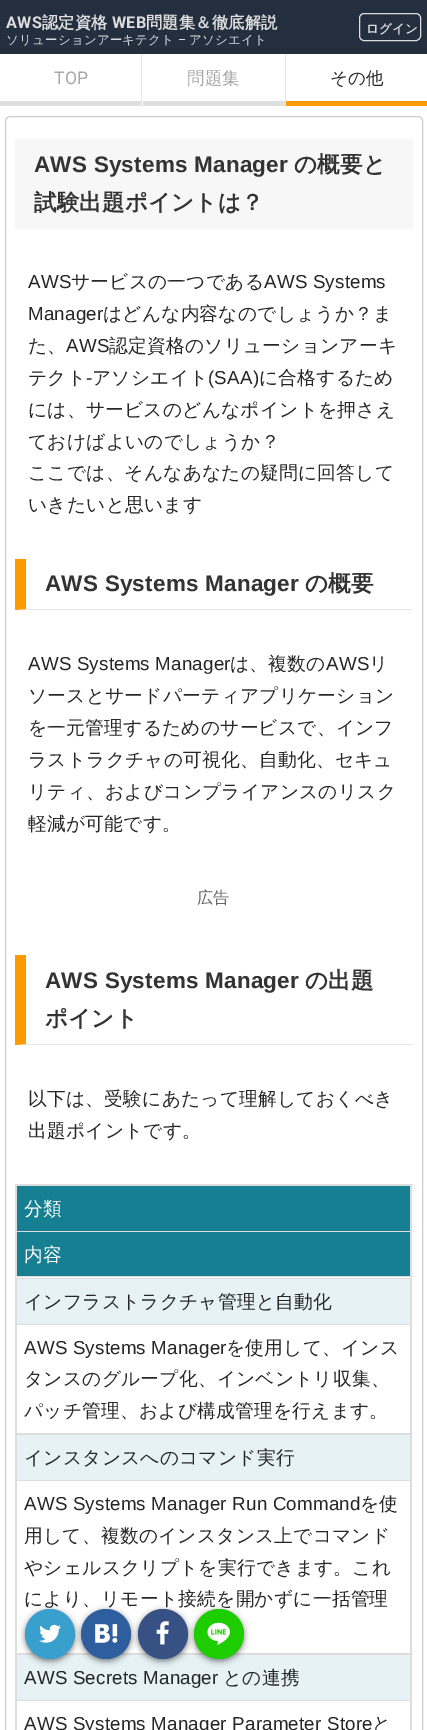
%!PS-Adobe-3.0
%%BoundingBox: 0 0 427 1730
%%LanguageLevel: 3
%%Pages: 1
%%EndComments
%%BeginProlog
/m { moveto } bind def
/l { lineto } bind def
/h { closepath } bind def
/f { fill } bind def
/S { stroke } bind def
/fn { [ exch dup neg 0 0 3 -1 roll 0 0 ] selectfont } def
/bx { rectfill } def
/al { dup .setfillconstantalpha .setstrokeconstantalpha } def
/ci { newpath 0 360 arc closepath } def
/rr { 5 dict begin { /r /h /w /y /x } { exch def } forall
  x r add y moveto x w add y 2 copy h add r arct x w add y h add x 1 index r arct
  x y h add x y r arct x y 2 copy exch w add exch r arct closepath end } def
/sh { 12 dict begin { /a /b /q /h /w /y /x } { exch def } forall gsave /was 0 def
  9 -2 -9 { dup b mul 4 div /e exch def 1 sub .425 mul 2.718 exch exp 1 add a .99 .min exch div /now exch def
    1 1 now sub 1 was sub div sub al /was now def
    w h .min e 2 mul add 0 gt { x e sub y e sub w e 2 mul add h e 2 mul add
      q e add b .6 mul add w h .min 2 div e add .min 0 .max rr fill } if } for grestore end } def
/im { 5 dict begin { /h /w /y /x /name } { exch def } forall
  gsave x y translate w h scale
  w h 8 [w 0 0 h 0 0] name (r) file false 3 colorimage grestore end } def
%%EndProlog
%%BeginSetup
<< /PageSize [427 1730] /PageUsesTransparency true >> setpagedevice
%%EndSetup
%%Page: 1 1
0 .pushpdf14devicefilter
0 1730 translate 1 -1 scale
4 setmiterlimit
1 setgray
0 0 427 1730 bx
0.137 0.184 0.243 setrgbcolor
0 0 427 54 bx
/Roboto-Bold 16.25 fn
0.867 setgray
6 28 m 0.2 0 (AWS) ashow
/WenQuanYiZenHei-Bold 16.25 fn
42 28 m 0.2 0 (認定資格) ashow
/Roboto-Bold 16.25 fn
112 28 m 0.2 0 (WEB) ashow
/WenQuanYiZenHei-Bold 16.25 fn
146 28 m 0.2 0 (問題集＆徹底解説) ashow
359.5 13.5 61 27 4.5 rr S
/WenQuanYiZenHei-Bold 12.5 fn
366 33 m 0.2 0 (ログイン) ashow
/WenQuanYiZenHei-Medium 12.5 fn
6 44 m 0.2 0 (ソリューションアーキテクト) ashow
/Roboto-Regular 12.5 fn
178 44 m 0.2 0 (–) ashow
/WenQuanYiZenHei-Medium 12.5 fn
189 44 m 0.2 0 (アソシエイト) ashow
0.875 setgray
0 101 141 5 bx
/Roboto-Regular 17.5 fn
0.651 setgray
54 84 m 0.2 0 (TOP) ashow
0.902 setgray
141 54 1 52 bx
0.875 setgray
143 101 142 5 bx
/WenQuanYiZenHei-Medium 17.5 fn
0.651 setgray
187 84 m 0.2 0 (問題集) ashow
0.902 setgray
285 54 1 52 bx
1 0.6 0 setrgbcolor
286 101 141 5 bx
0.149 setgray
330 84 m 0.2 0 (その他) ashow
0.8 setgray
5.5 116.5 417 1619 4.5 rr S
0.969 setgray
15 139 398 90 bx
/LiberationSans-Bold 22.5 fn
0.2 setgray
34 172 m 0.2 0 (AWS Systems Manager) ashow
/WenQuanYiZenHei-Bold 22.5 fn
294 172 m 0.2 0 (の概要と) ashow
34 210 m 0.2 0 (試験出題ポイントは？) ashow
/LiberationSans-Regular 18.75 fn
0.149 setgray
28 288 m 0.2 0 (AWS) ashow
/WenQuanYiZenHei-Medium 18.75 fn
71 288 m 0.2 0 (サービスの一つである) ashow
/LiberationSans-Regular 18.75 fn
264 288 m 0.2 0 (AWS Systems) ashow
28 320 m 0.2 0 (Manager) ashow
/WenQuanYiZenHei-Medium 18.75 fn
103 320 m 0.2 0 (はどんな内容なのでしょうか？ま) ashow
28 352 m 0.2 0 (た、) ashow
/LiberationSans-Regular 18.75 fn
66 352 m 0.2 0 (AWS) ashow
/WenQuanYiZenHei-Medium 18.75 fn
109 352 m 0.2 0 (認定資格のソリューションアーキ) ashow
28 384 m 0.2 0 (テクト) ashow
/LiberationSans-Regular 18.75 fn
86 384 m 0.2 0 (-) ashow
/WenQuanYiZenHei-Medium 18.75 fn
92 384 m 0.2 0 (アソシエイト) ashow
/LiberationSans-Regular 18.75 fn
208 384 m 0.2 0 (\(SAA\)) ashow
/WenQuanYiZenHei-Medium 18.75 fn
259 384 m 0.2 0 (に合格するため) ashow
28 416 m 0.2 0 (には、サービスのどんなポイントを押さえ) ashow
28 448 m 0.2 0 (ておけばよいのでしょうか？) ashow
28 479 m 0.2 0 (ここでは、そんなあなたの疑問に回答して) ashow
28 511 m 0.2 0 (いきたいと思います) ashow
0.902 setgray
412 610 m 15 610 l 26 609 l 412 609 l h f
1 0.6 0 setrgbcolor
15 610 m 15 559 l 26 559 l 26 609 l h f
/LiberationSans-Bold 22.5 fn
0.2 setgray
45 591 m 0.2 0 (AWS Systems Manager) ashow
/WenQuanYiZenHei-Bold 22.5 fn
305 591 m 0.2 0 (の概要) ashow
/LiberationSans-Regular 18.75 fn
0.149 setgray
28 670 m 0.2 0 (AWS Systems Manager) ashow
/WenQuanYiZenHei-Medium 18.75 fn
230 670 m 0.2 0 (は、複数の) ashow
/LiberationSans-Regular 18.75 fn
326 670 m 0.2 0 (AWS) ashow
/WenQuanYiZenHei-Medium 18.75 fn
369 670 m 0.2 0 (リ) ashow
28 702 m 0.2 0 (ソースとサードパーティアプリケーション) ashow
28 734 m 0.2 0 (を一元管理するためのサービスで、インフ) ashow
28 766 m 0.2 0 (ラストラクチャの可視化、自動化、セキュ) ashow
28 798 m 0.2 0 (リティ、およびコンプライアンスのリスク) ashow
28 830 m 0.2 0 (軽減が可能です。) ashow
/WenQuanYiZenHei-Medium 16.25 fn
0.4 setgray
197 903 m 0.2 0 (広告) ashow
0.902 setgray
412 1045 m 15 1045 l 26 1044 l 412 1044 l h f
1 0.6 0 setrgbcolor
15 1045 m 15 955 l 26 955 l 26 1044 l h f
/LiberationSans-Bold 22.5 fn
0.2 setgray
45 988 m 0.2 0 (AWS Systems Manager) ashow
/WenQuanYiZenHei-Bold 22.5 fn
305 988 m 0.2 0 (の出題) ashow
45 1026 m 0.2 0 (ポイント) ashow
/WenQuanYiZenHei-Medium 18.75 fn
0.149 setgray
28 1105 m 0.2 0 (以下は、受験にあたって理解しておくべき) ashow
28 1137 m 0.2 0 (出題ポイントです。) ashow
0.867 setgray
15 1184 398 1 bx
0.973 setgray
16 1185 397 93 bx
0.867 setgray
411 1184 1 546 bx
15 1184 1 546 bx
0.086 0.498 0.573 setrgbcolor
17 1186 393 45 bx
0.867 setgray
16 1185 395 1 bx
410 1185 1 46 bx
16 1185 1 46 bx
1 setgray
24 1215 m 0.2 0 (分類) ashow
0.086 0.498 0.573 setrgbcolor
17 1232 393 44 bx
0.867 setgray
16 1231 395 1 bx
410 1231 1 45 bx
16 1231 1 45 bx
1 setgray
24 1261 m 0.2 0 (内容) ashow
0.867 setgray
15 1276 398 1 bx
0.902 0.949 0.961 setrgbcolor
17 1279 393 45 bx
0.867 setgray
16 1278 395 1 bx
410 1278 1 46 bx
16 1278 1 46 bx
0.149 setgray
24 1308 m 0.2 0 (インフラストラクチャ管理と自動化) ashow
0.867 setgray
16 1324 395 1 bx
410 1324 1 109 bx
16 1324 1 109 bx
/LiberationSans-Regular 18.75 fn
0.149 setgray
24 1354 m 0.2 0 (AWS Systems Manager) ashow
/WenQuanYiZenHei-Medium 18.75 fn
226 1354 m 0.2 0 (を使用して、インス) ashow
24 1385 m 0.2 0 (タンスのグループ化、インベントリ収集、) ashow
24 1417 m 0.2 0 (パッチ管理、および構成管理を行えます。) ashow
0.867 setgray
15 1433 398 1 bx
0.902 0.949 0.961 setrgbcolor
17 1435 393 45 bx
0.867 setgray
16 1434 395 1 bx
410 1434 1 46 bx
16 1434 1 46 bx
0.149 setgray
24 1464 m 0.2 0 (インスタンスへのコマンド実行) ashow
0.867 setgray
16 1480 395 1 bx
410 1480 1 173 bx
16 1480 1 173 bx
/LiberationSans-Regular 18.75 fn
0.149 setgray
24 1510 m 0.2 0 (AWS Systems Manager Run Command) ashow
/WenQuanYiZenHei-Medium 18.75 fn
360 1510 m 0.2 0 (を使) ashow
24 1542 m 0.2 0 (用して、複数のインスタンス上でコマンド) ashow
24 1574 m 0.2 0 (やシェルスクリプトを実行できます。これ) ashow
24 1605 m 0.2 0 (により、リモート接続を開かずに一括管理) ashow
0.867 setgray
15 1653 398 1 bx
0.902 0.949 0.961 setrgbcolor
17 1655 393 45 bx
0.867 setgray
16 1654 395 1 bx
410 1654 1 46 bx
16 1654 1 46 bx
/LiberationSans-Regular 18.75 fn
0.149 setgray
24 1684 m 0.2 0 (AWS Secrets Manager) ashow
/WenQuanYiZenHei-Medium 18.75 fn
223 1684 m 0.2 0 (との連携) ashow
0.867 setgray
16 1700 395 1 bx
410 1700 1 30 bx
16 1700 1 30 bx
/LiberationSans-Regular 18.75 fn
0.149 setgray
24 1730 m 0.2 0 (AWS Systems Manager Parameter Store) ashow
/WenQuanYiZenHei-Medium 18.75 fn
372 1730 m 0.2 0 (と) ashow
0 setgray
25 1611 50 50 25 3 0.5 sh
0.224 0.627 0.804 setrgbcolor
50 1634 25 ci f
(image0.raw) 39 1624 22 19 im
0 setgray
81 1611 50 50 25 3 0.5 sh
0.18 0.369 0.62 setrgbcolor
106 1634 25 ci f
(image1.raw) 95 1624 23 19 im
0 setgray
138 1611 50 50 25 3 0.5 sh
0.22 0.318 0.522 setrgbcolor
163 1634 25 ci f
(image2.raw) 156 1621 13 24 im
0 setgray
194 1611 50 50 25 3 0.5 sh
0.114 0.804 0 setrgbcolor
219 1634 25 ci f
(image3.raw) 207 1622 23 23 im
.poppdf14devicefilter showpage
%%EOF
